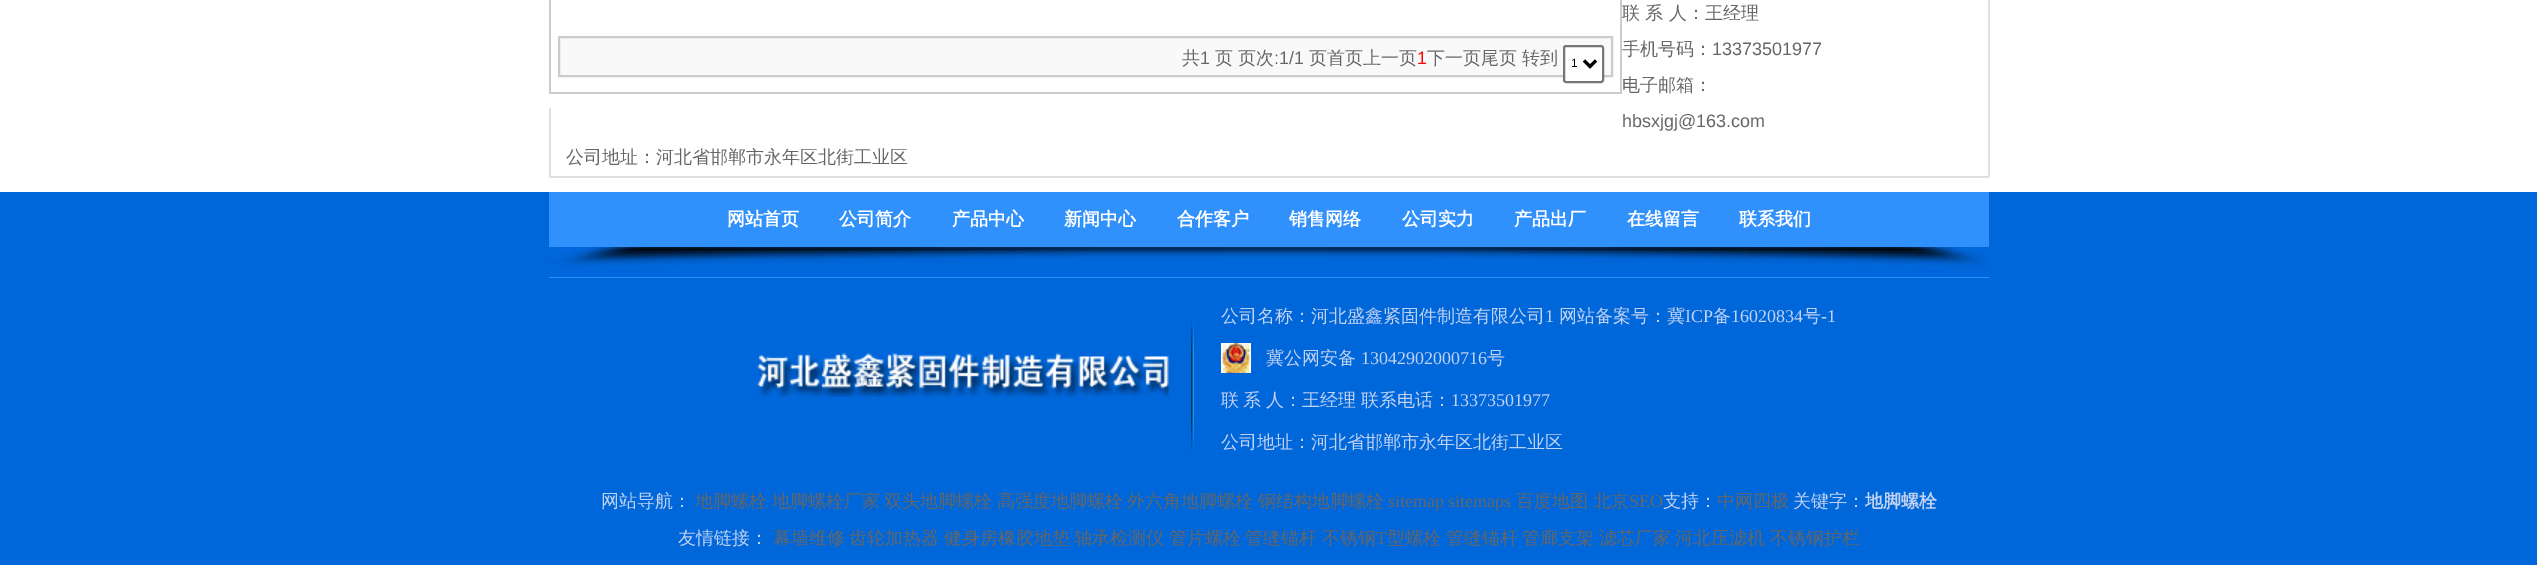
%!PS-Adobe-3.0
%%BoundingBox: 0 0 2537 565
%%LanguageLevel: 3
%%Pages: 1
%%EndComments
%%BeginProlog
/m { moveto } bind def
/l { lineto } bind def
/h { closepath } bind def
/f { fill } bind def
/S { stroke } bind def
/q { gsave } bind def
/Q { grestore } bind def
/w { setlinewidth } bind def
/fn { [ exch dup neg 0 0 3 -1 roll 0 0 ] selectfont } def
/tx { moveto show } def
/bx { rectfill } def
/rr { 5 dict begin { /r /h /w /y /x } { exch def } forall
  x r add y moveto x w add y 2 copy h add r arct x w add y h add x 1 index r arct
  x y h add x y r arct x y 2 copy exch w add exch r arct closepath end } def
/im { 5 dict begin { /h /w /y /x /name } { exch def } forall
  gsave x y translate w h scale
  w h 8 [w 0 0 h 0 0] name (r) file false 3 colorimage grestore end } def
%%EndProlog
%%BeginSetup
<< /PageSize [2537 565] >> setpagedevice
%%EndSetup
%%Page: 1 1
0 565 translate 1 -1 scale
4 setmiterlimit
1 setgray
0 0 2537 565 bx
0.875 setgray
1988 0 2 177 bx
549 176 1440 2 bx
549 108 2 69 bx
/WenQuanYiZenHei-Medium 18 fn
0.4 setgray
(联 系 人：王经理) 1622 19 tx
(手机号码：) 1622 55 tx
/LiberationSans-Regular 18 fn
(13373501977) 1712 55 tx
/WenQuanYiZenHei-Medium 18 fn
(电子邮箱：) 1622 91 tx
/LiberationSans-Regular 18 fn
(hbsxjgj@163.com) 1622 127 tx
/WenQuanYiZenHei-Medium 18 fn
(公司地址：河北省邯郸市永年区北街工业区) 566 163 tx
1 setgray
1621 5 1 46 bx
0.8 setgray
1620 0 2 93 bx
549 92 1073 2 bx
549 0 2 93 bx
0.976 setgray
559 37 m 1612 37 l 1612 76 l 559 76 l h q f Q
0.8 setgray
2 w
S
0.4 setgray
(共) 1182 64 tx
/LiberationSans-Regular 18 fn
(1) 1200 64 tx
/WenQuanYiZenHei-Medium 18 fn
(页 页次) 1215 64 tx
/LiberationSans-Regular 18 fn
(:1/1) 1274 64 tx
/WenQuanYiZenHei-Medium 18 fn
(页首页上一页) 1309 64 tx
/LiberationSans-Regular 18 fn
1 0 0 setrgbcolor
(1) 1417 64 tx
/WenQuanYiZenHei-Medium 18 fn
0.4 setgray
(下一页尾页) 1427 64 tx
(转到) 1522 64 tx
1 setgray
1564 46 39 36 2 rr q f Q
0.463 setgray
S
0 setgray
3 w
1584 60.5 m 1590 66.5 l 1596 60.5 l S
/LiberationSans-Regular 12 fn
(1) 1571 67 tx
0 0.404 0.859 setrgbcolor
0 192 2537 373 bx
0.188 0.565 0.988 setrgbcolor
549 192 1440 86 bx
(image0.raw) 549 247 1440 30 im
/WenQuanYiZenHei-Bold 18 fn
1 setgray
(网站首页) 727 225 tx
(公司简介) 839 225 tx
(产品中心) 952 225 tx
(新闻中心) 1064 225 tx
(合作客户) 1177 225 tx
(销售网络) 1289 225 tx
(公司实力) 1402 225 tx
(产品出厂) 1514 225 tx
(在线留言) 1627 225 tx
(联系我们) 1739 225 tx
(image1.raw) 757 353 412 44 im
(image2.raw) 1191 319 3 135 im
/WenQuanYiZenHei-Medium 18 fn
0.761 0.824 0.953 setrgbcolor
(公司名称：河北盛鑫紧固件制造有限公司) 1221 322 tx
/LiberationSerif-Regular 18 fn
(1) 1545 322 tx
/WenQuanYiZenHei-Medium 18 fn
(网站备案号：冀) 1559 322 tx
/LiberationSerif-Regular 18 fn
(ICP) 1685 322 tx
/WenQuanYiZenHei-Medium 18 fn
(备) 1713 322 tx
/LiberationSerif-Regular 18 fn
(16020834) 1731 322 tx
/WenQuanYiZenHei-Medium 18 fn
(号) 1803 322 tx
/LiberationSerif-Regular 18 fn
(-1) 1821 322 tx
(image3.raw) 1221 343 30 30 im
/WenQuanYiZenHei-Medium 18 fn
(冀公网安备) 1266 364 tx
/LiberationSerif-Regular 18 fn
(13042902000716) 1361 364 tx
/WenQuanYiZenHei-Medium 18 fn
(号) 1487 364 tx
1221 406 m -1 0 32 (联 系 人：王经理) widthshow
(联系电话：) 1361 406 tx
/LiberationSerif-Regular 18 fn
(13373501977) 1451 406 tx
/WenQuanYiZenHei-Medium 18 fn
(公司地址：河北省邯郸市永年区北街工业区) 1221 448 tx
(网站导航：) 601 507 tx
0.4 setgray
(地脚螺栓) 695 507 tx
(地脚螺栓厂家) 772 507 tx
(双头地脚螺栓) 884 507 tx
(高强度地脚螺栓) 997 507 tx
(外六角地脚螺栓) 1127 507 tx
(钢结构地脚螺栓) 1258 507 tx
/LiberationSerif-Regular 18 fn
(sitemap sitemaps) 1388 507 tx
/WenQuanYiZenHei-Medium 18 fn
(百度地图) 1516 507 tx
(北京) 1593 507 tx
/LiberationSerif-Regular 18 fn
(SEO) 1629 507 tx
/WenQuanYiZenHei-Medium 18 fn
0.761 0.824 0.953 setrgbcolor
(支持：) 1663 507 tx
0.4 setgray
(中网四极) 1717 507 tx
0.761 0.824 0.953 setrgbcolor
(关键字：) 1793 507 tx
/WenQuanYiZenHei-Bold 18 fn
(地脚螺栓) 1865 507 tx
/WenQuanYiZenHei-Medium 18 fn
(友情链接：) 678 544 tx
0.4 setgray
(幕墙维修) 773 544 tx
(齿轮加热器) 849 544 tx
(健身房橡胶地垫) 944 544 tx
(轴承检测仪) 1074 544 tx
(管片螺栓) 1169 544 tx
(管缝锚杆) 1245 544 tx
(不锈钢) 1322 544 tx
/LiberationSerif-Regular 18 fn
(T) 1376 544 tx
/WenQuanYiZenHei-Medium 18 fn
(型螺栓) 1387 544 tx
(管缝锚杆) 1446 544 tx
(管廊支架) 1522 544 tx
(滤芯厂家) 1599 544 tx
(河北压滤机) 1675 544 tx
(不锈钢护栏) 1770 544 tx
showpage
%%EOF
